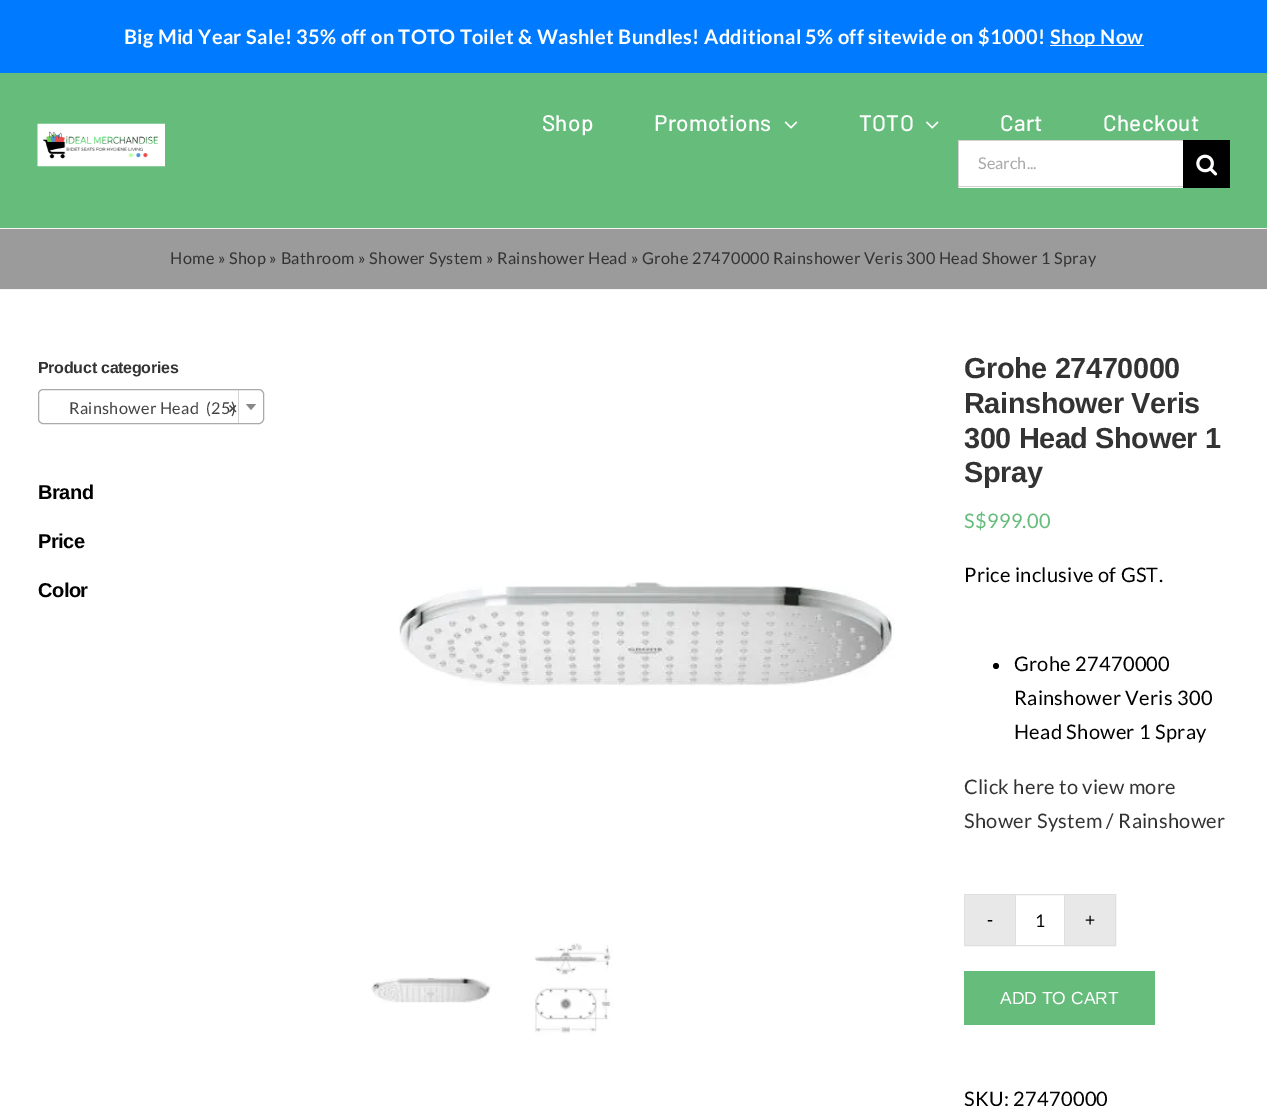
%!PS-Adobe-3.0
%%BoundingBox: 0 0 1267 1106
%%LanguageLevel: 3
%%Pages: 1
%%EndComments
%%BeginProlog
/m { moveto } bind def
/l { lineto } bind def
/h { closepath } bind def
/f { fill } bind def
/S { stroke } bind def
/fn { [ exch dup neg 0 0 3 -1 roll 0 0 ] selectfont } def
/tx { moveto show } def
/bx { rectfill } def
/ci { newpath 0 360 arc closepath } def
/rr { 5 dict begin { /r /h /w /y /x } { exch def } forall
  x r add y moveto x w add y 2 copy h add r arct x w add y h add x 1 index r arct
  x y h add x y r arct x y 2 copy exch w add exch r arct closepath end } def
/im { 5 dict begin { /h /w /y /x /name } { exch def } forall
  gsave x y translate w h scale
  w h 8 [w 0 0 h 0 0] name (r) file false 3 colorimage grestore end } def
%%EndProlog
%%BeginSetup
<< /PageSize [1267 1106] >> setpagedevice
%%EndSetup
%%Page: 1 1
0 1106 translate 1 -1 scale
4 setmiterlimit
1 setgray
0 0 1267 1106 bx
0 0.482 1 setrgbcolor
0 0 1267 73 bx
/Lato-Bold 20 fn
1 setgray
124 44 m 0.3 0 (Big Mid Year Sale! 35% off on TOTO Toilet & Washlet Bundles! Additional 5% off sitewide on $1000!) ashow
1050 45 94 1 bx
1050 44 m 0.3 0 (Shop Now) ashow
0.396 0.737 0.482 setrgbcolor
0 73 1267 155 bx
(image0.raw) 37 123 128 44 im
/Barlow-Medium 22.5 fn
1 setgray
542 131 m 0.25 0 (Shop) ashow
654 131 m 0.25 0 (Promotions) ashow
(image1.raw) 784 121 14 8 im
859 131 m 0.25 0 (TOTO) ashow
(image2.raw) 926 121 13 8 im
1000 131 m 0.25 0 (Cart) ashow
1103 131 m 0.25 0 (Checkout) ashow
959 141 224 47 bx
0.824 setgray
958 140 225 1 bx
958 186 225 1 bx
958 140 1 48 bx
/Lato-Regular 16.25 fn
0.667 0.663 0.663 setrgbcolor
(Search...) 978 169 tx
0 setgray
1183 140 47 48 bx
(image3.raw) 1196 154 22 22 im
0.608 setgray
0 229 1267 60 bx
0.969 0.957 0.965 setrgbcolor
0 228 1267 1 bx
0 289 1267 1 bx
0.2 setgray
170 264 m 0.3 0 (Home » Shop » Bathroom » Shower System » Rainshower Head » Grohe 27470000 Rainshower Veris 300 Head Shower 1 Spray) ashow
/LiberationSans-Bold 16 fn
38 373 m -0.25 0 (Product categories) ashow
0.667 setgray
38.5 389.5 225 34 4.5 rr S
/Lato-Regular 16.25 fn
0.267 setgray
69 414 m 0.3 0 (Rainshower Head  \(25\)) ashow
/Lato-Bold 16.25 fn
228 414 m 0.3 0 (×) ashow
0.824 setgray
238 390 1 33 bx
0.533 setgray
246 404 m 256 404 l 251 410 l h f
/LiberationSans-Bold 20 fn
0 setgray
38 499 m -0.5 0 (Brand) ashow
38 548 m -0.5 0 (Price) ashow
38 597 m -0.5 0 (Color) ashow
(image4.raw) 399 582 496 104 im
(image5.raw) 371 977 121 26 im
(image6.raw) 534 943 80 92 im
/LiberationSans-Bold 28.9 fn
0.2 setgray
964 378 m -0.4 0 (Grohe 27470000) ashow
964 413 m -0.4 0 (Rainshower Veris) ashow
964 448 m -0.4 0 (300 Head Shower 1) ashow
964 482 m -0.4 0 (Spray) ashow
/Lato-Regular 20 fn
0.396 0.737 0.482 setrgbcolor
964 528 m 0.3 0 (S$999.00) ashow
0 setgray
964 582 m 0.3 0 (Price inclusive of GST.) ashow
996 666 3 ci f
1014 671 m 0.3 0 (Grohe 27470000) ashow
1014 705 m 0.3 0 (Rainshower Veris 300) ashow
1014 739 m 0.3 0 (Head Shower 1 Spray) ashow
0.2 setgray
964 794 m 0.3 0 (Click here to view more) ashow
964 828 m 0.3 0 (Shower System / Rainshower) ashow
0.878 0.871 0.871 setrgbcolor
964.5 894.5 151 51 rectstroke
0.91 setgray
965 895 50 50 bx
/Lato-Regular 17.5 fn
0 setgray
(-) 987 926 tx
0.878 0.871 0.871 setrgbcolor
1064 895 1 50 bx
1015 895 1 50 bx
0 setgray
(1) 1035 927 tx
0.91 setgray
1065 895 50 50 bx
0 setgray
(+) 1085 926 tx
0.396 0.737 0.482 setrgbcolor
964 971 191 54 bx
/LiberationSans-Regular 17.5 fn
1 setgray
(ADD TO CART) 1000 1004 tx
/Lato-Regular 20 fn
0 setgray
964 1106 m 0.3 0 (SKU: 27470000) ashow
showpage
%%EOF
